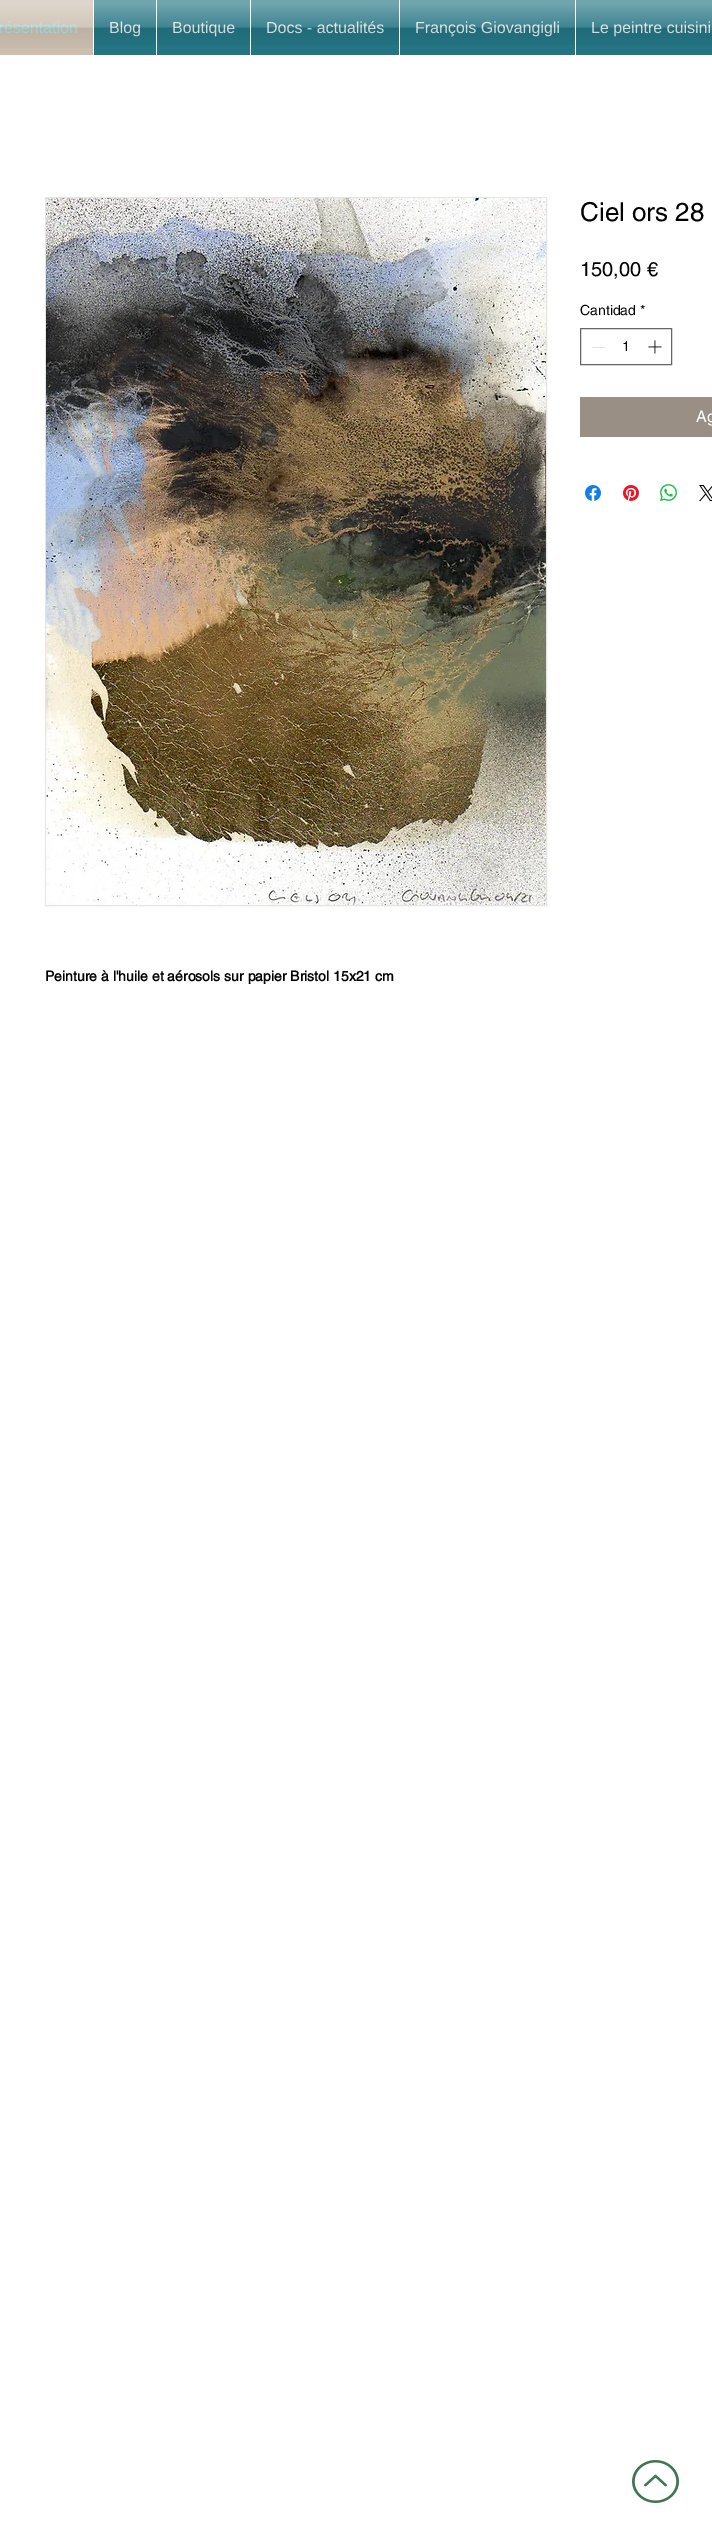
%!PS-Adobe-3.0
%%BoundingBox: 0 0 712 2535
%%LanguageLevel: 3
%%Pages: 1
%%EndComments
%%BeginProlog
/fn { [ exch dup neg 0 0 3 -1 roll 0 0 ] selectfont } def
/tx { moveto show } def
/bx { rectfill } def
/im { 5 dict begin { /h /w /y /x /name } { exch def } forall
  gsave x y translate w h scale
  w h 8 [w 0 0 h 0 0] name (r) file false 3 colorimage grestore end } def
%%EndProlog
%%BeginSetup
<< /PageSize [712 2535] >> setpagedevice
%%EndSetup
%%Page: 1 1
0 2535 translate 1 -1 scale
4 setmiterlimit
1 setgray
0 0 712 2535 bx
0.8 0.749 0.69 setrgbcolor
0 0 93 55 bx
/LiberationSans-Regular 16 fn
0.604 0.89 0.929 setrgbcolor
(résentation) -1 33 tx
(image0.raw) 0 0 93 48 im
0.141 0.455 0.514 setrgbcolor
94 0 62 55 bx
0.898 setgray
(Blog) 109 33 tx
(image1.raw) 94 0 62 45 im
0.141 0.455 0.514 setrgbcolor
157 0 93 55 bx
0.898 setgray
(Boutique) 172 33 tx
(image2.raw) 157 0 93 45 im
0.141 0.455 0.514 setrgbcolor
251 0 148 55 bx
0.898 setgray
(Docs - actualités) 266 33 tx
(image3.raw) 251 0 148 45 im
0.141 0.455 0.514 setrgbcolor
400 0 175 55 bx
0.898 setgray
(François Giovangigli) 415 33 tx
(image4.raw) 400 0 175 45 im
0.141 0.455 0.514 setrgbcolor
576 0 136 55 bx
0.898 setgray
(Le peintre cuisini) 591 33 tx
(image5.raw) 576 0 136 45 im
/helvetica-Regular 26 fn
0 setgray
(Ciel ors 28) 580 221 tx
/helvetica-Regular 20 fn
(150,00 €) 580 276 tx
/helvetica-Regular 14 fn
(Cantidad *) 580 315 tx
0.4 setgray
580.5 328.5 91 36 rectstroke
0.89 setgray
592 347 13 1 bx
0 setgray
(1) 622 351 tx
(image6.raw) 648 340 14 14 im
0.6 0.561 0.518 setrgbcolor
580 397 132 40 bx
/helvetica-Regular 16 fn
1 setgray
(Ag) 696 422 tx
(image7.raw) 585 485 16 16 im
(image8.raw) 623 485 16 16 im
(image9.raw) 660 484 17 17 im
(image10.raw) 699 485 13 16 im
0.898 setgray
45.5 197.5 501 708 rectstroke
(image11.raw) 46 198 500 707 im
/helvetica-Bold 14 fn
0 setgray
(Peinture à l'huile et aérosols sur papier Bristol 15x21 cm) 45 981 tx
(image12.raw) 632 2460 47 43 im
showpage
%%EOF
